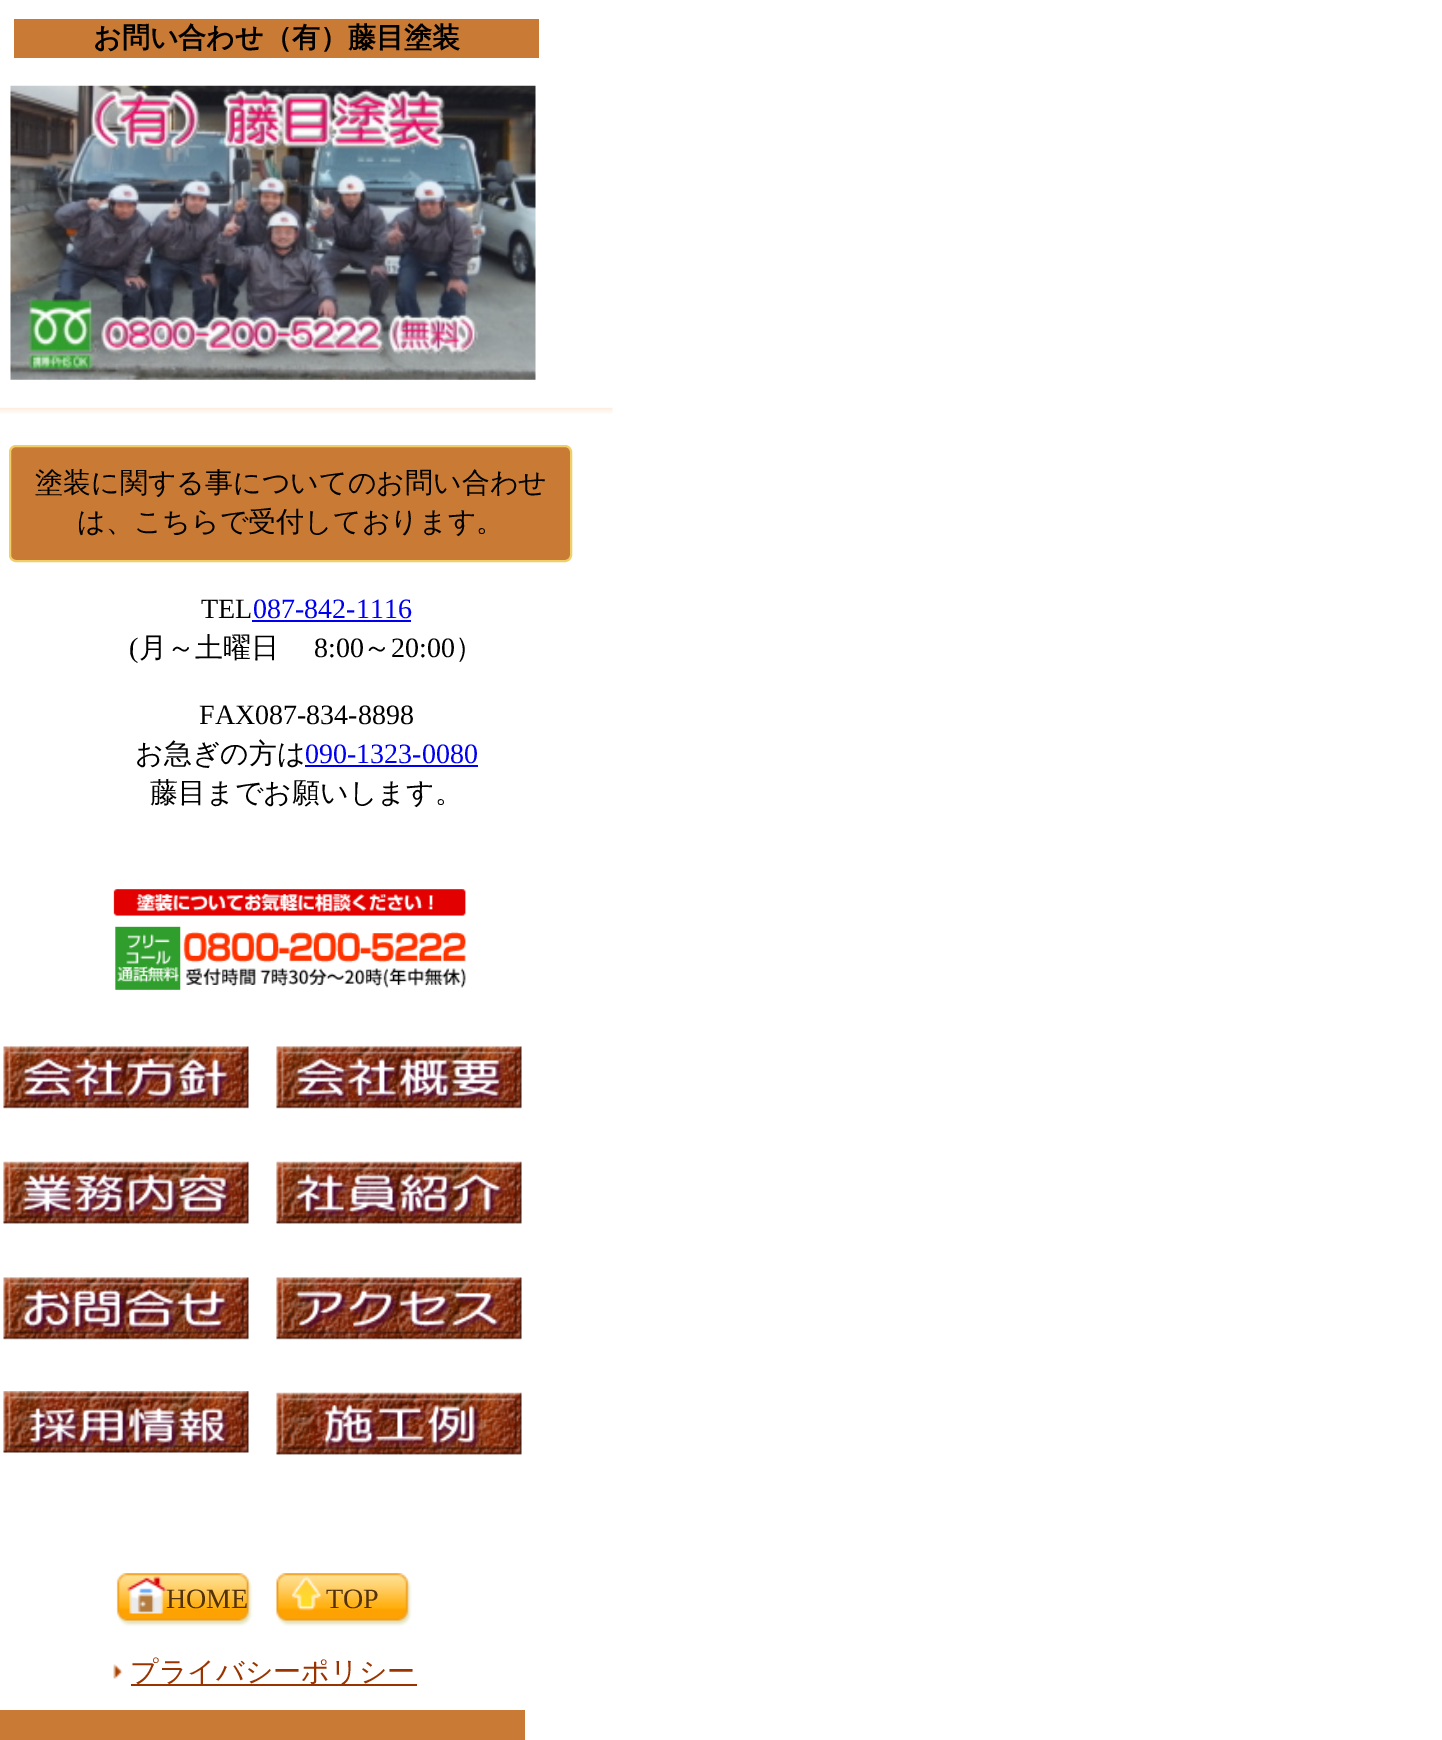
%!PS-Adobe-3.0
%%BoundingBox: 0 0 1442 1740
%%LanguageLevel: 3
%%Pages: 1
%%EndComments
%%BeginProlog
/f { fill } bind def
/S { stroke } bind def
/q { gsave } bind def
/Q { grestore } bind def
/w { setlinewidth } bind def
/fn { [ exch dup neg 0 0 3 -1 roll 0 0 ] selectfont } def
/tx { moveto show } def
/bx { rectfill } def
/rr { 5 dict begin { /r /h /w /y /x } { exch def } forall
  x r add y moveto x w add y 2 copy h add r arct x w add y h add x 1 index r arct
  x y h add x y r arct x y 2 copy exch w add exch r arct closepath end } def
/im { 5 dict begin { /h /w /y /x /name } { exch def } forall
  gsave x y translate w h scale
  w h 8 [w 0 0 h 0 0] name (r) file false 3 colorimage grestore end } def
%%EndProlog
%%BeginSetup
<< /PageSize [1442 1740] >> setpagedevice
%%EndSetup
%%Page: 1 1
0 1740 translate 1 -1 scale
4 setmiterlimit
1 setgray
0 0 1442 1740 bx
0.788 0.478 0.204 setrgbcolor
14 19 525 39 bx
/WenQuanYiZenHei-Bold 28 fn
0 setgray
(お問い合わせ（有）藤目塗装) 93 47 tx
(image0.raw) 10 85 526 295 im
(image1.raw) 0 407 613 7 im
0.788 0.478 0.204 setrgbcolor
10 446 561 115 6 rr q f Q
0.941 0.808 0.408 setrgbcolor
2 w
S
/WenQuanYiZenHei-Medium 28 fn
0 setgray
(塗装に関する事についてのお問い合わせ) 35 492 tx
(は、こちらで受付しております。) 77 531 tx
/LiberationSerif-Regular 28 fn
(TEL) 201 618 tx
0 0 0.933 setrgbcolor
(087-842-1116) 253 618 tx
252 620 159 2 bx
0 setgray
(\() 129 657 tx
/WenQuanYiZenHei-Medium 28 fn
(月～土曜日) 139 657 tx
/LiberationSerif-Regular 28 fn
(8:00) 314 657 tx
/WenQuanYiZenHei-Medium 28 fn
(～) 363 657 tx
/LiberationSerif-Regular 28 fn
(20:00) 391 657 tx
/WenQuanYiZenHei-Medium 28 fn
(）) 455 657 tx
/LiberationSerif-Regular 28 fn
(FAX087-834-8898) 199 724 tx
/WenQuanYiZenHei-Medium 28 fn
(お急ぎの方は) 135 763 tx
/LiberationSerif-Regular 28 fn
0 0 0.933 setrgbcolor
(090-1323-0080) 305 763 tx
305 765 173 2 bx
/WenQuanYiZenHei-Medium 28 fn
0 setgray
(藤目までお願いします。) 150 802 tx
(image2.raw) 113 889 353 101 im
(image3.raw) 3 1046 246 63 im
(image4.raw) 276 1046 246 63 im
(image5.raw) 3 1161 246 63 im
(image6.raw) 276 1161 246 63 im
(image7.raw) 3 1277 246 63 im
(image8.raw) 276 1277 246 63 im
(image9.raw) 3 1391 246 62 im
(image10.raw) 276 1392 246 63 im
(image11.raw) 116 1573 137 53 im
/LiberationSerif-Regular 28 fn
0.322 0.192 0.043 setrgbcolor
(HOME) 166 1608 tx
(image12.raw) 276 1573 136 53 im
(TOP) 326 1608 tx
(image13.raw) 113 1664 10 15 im
0.6 0.2 0 setrgbcolor
131 1684 286 2 bx
/WenQuanYiZenHei-Medium 28 fn
(プライバシーポリシー) 130 1681 tx
0.788 0.478 0.204 setrgbcolor
0 1710 525 30 bx
showpage
%%EOF
